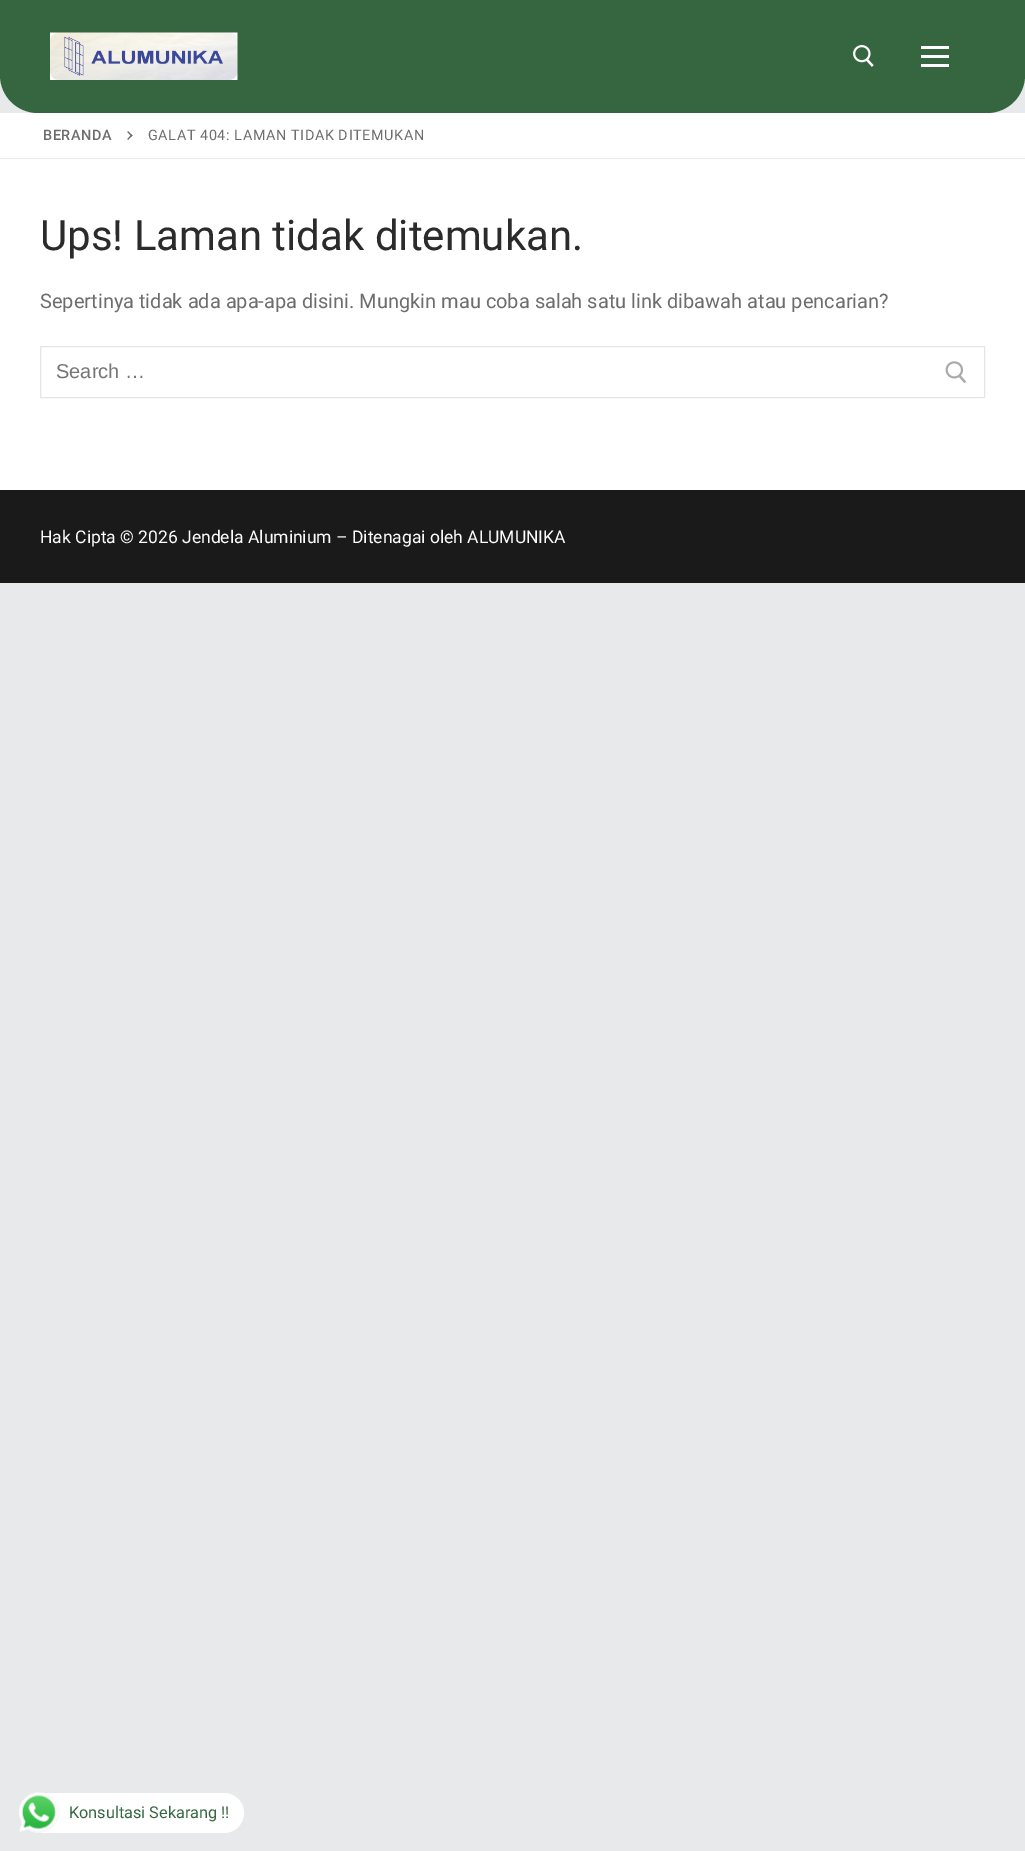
%!PS-Adobe-3.0
%%BoundingBox: 0 0 1025 1851
%%LanguageLevel: 3
%%Pages: 1
%%EndComments
%%BeginProlog
/m { moveto } bind def
/l { lineto } bind def
/c { curveto } bind def
/h { closepath } bind def
/f { fill } bind def
/S { stroke } bind def
/fn { [ exch dup neg 0 0 3 -1 roll 0 0 ] selectfont } def
/tx { moveto show } def
/bx { rectfill } def
/rr { 5 dict begin { /r /h /w /y /x } { exch def } forall
  x r add y moveto x w add y 2 copy h add r arct x w add y h add x 1 index r arct
  x y h add x y r arct x y 2 copy exch w add exch r arct closepath end } def
/im { 5 dict begin { /h /w /y /x /name } { exch def } forall
  gsave x y translate w h scale
  w h 8 [w 0 0 h 0 0] name (r) file false 3 colorimage grestore end } def
%%EndProlog
%%BeginSetup
<< /PageSize [1025 1851] >> setpagedevice
%%EndSetup
%%Page: 1 1
0 1851 translate 1 -1 scale
4 setmiterlimit
0.91 0.914 0.922 setrgbcolor
0 0 1025 1851 bx
0.208 0.4 0.247 setrgbcolor
0 0 m 1025 0 l 1025 75 l 1025 96 1008 113 987 113 c 38 113 l 17 113 0 96 0 75 c h f
(image0.raw) 50 32 188 48 im
(image1.raw) 853 45 21 22 im
1 setgray
921 55 28 3 bx
921 46 28 3 bx
921 64 28 3 bx
0 113 1025 45 bx
0.918 0.925 0.933 setrgbcolor
0 158 1025 1 bx
/Roboto-Medium 14.4 fn
0.427 setgray
43 140 m 0.6 0 (BERANDA) ashow
132.5 135.5 m 128 140 l 127.5 139 l 131.5 134.5 l h f
132.5 135.5 m 131.5 136.5 l 127.5 132 l 128 131 l h f
/Roboto-Regular 14.4 fn
148 140 m 0.6 0 (GALAT 404: LAMAN TIDAK DITEMUKAN) ashow
1 setgray
0 159 1025 331 bx
/Roboto-Regular 42 fn
0.169 setgray
(Ups! Laman tidak ditemukan.) 40 250 tx
/Roboto-Regular 20 fn
0.427 setgray
(Sepertinya tidak ada apa-apa disini. Mungkin mau coba salah satu link dibawah atau pencarian?) 40 308 tx
0.898 setgray
40.5 346.5 944 51 0.5 rr S
/LiberationSans-Regular 20 fn
0.459 setgray
(Search …) 56 378 tx
(image2.raw) 945 361 22 23 im
0.102 setgray
0 490 1025 93 bx
/Roboto-Regular 17.5 fn
0.992 setgray
(Hak Cipta © 2026 Jendela Aluminium – Ditenagai oleh ALUMUNIKA) 40 543 tx
1 setgray
19 1793 225 40 20 rr f
(image3.raw) 19 1792 40 41 im
/Roboto-Regular 16.25 fn
0.208 0.4 0.247 setrgbcolor
(Konsultasi Sekarang !!) 69 1818 tx
showpage
%%EOF
